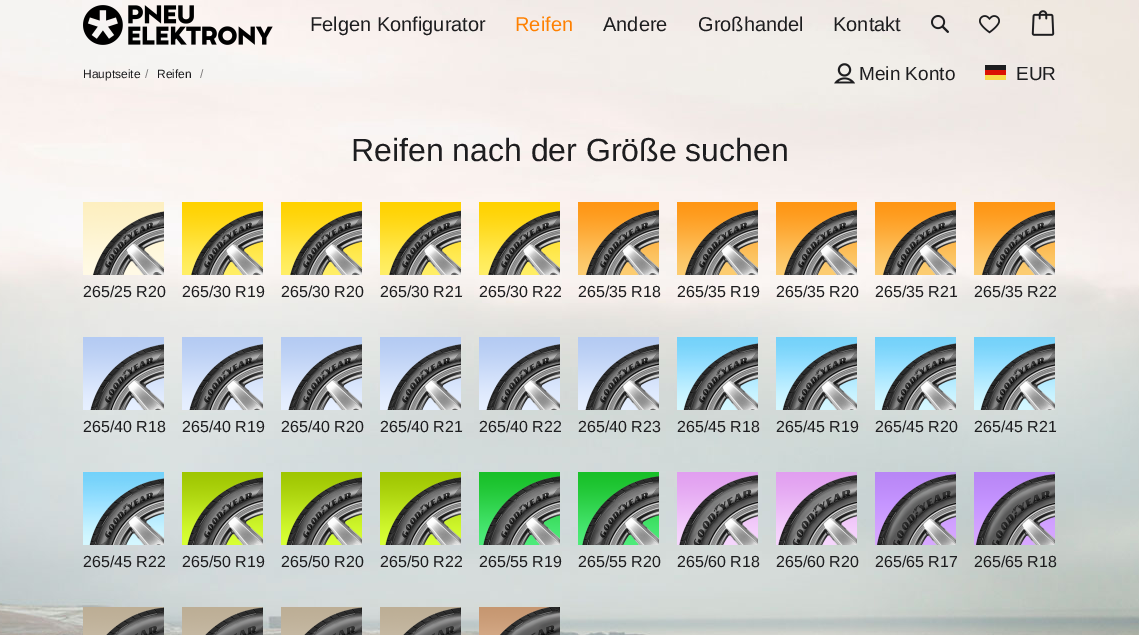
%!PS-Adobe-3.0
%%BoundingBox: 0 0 1139 635
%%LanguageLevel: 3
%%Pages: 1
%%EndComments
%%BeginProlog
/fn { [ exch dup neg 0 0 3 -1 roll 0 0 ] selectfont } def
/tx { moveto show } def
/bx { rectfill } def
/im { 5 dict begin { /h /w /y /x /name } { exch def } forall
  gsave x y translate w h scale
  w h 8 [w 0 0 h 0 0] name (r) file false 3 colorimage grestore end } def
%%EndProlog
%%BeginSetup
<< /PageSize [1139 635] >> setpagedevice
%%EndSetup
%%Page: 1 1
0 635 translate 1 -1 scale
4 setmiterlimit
1 setgray
0 0 1139 635 bx
(image6.raw) 0 0 1139 635 im
(image0.raw) 83 5 190 40 im
/LiberationSans-Regular 20 fn
0.114 0.114 0.122 setrgbcolor
(Felgen Konfigurator) 310 31 tx
1 0.502 0 setrgbcolor
(Reifen) 515 31 tx
0.114 0.114 0.122 setrgbcolor
(Andere) 603 31 tx
(Großhandel) 698 31 tx
(Kontakt) 833 31 tx
(image1.raw) 931 15 18 18 im
(image2.raw) 979 15 21 19 im
(image3.raw) 1031 10 24 26 im
/LiberationSans-Regular 12 fn
(Hauptseite) 83 78 tx
0.498 0.49 0.49 setrgbcolor
(/) 145 78 tx
0.114 0.114 0.122 setrgbcolor
(Reifen) 157 78 tx
0.498 0.49 0.49 setrgbcolor
(/) 200 78 tx
(image4.raw) 834 63 21 21 im
/LiberationSans-Regular 19 fn
0.114 0.114 0.122 setrgbcolor
(Mein Konto) 859 80 tx
(image5.raw) 985 65 21 15 im
(EUR) 1016 80 tx
/LiberationSans-Regular 32 fn
(Reifen nach der Größe suchen) 351 161 tx
(image7.raw) 83 202 81 73 im
/LiberationSans-Regular 16 fn
(265/25 R20) 83 297 tx
(image8.raw) 182 202 81 73 im
(265/30 R19) 182 297 tx
(image8.raw) 281 202 81 73 im
(265/30 R20) 281 297 tx
(image8.raw) 380 202 81 73 im
(265/30 R21) 380 297 tx
(image8.raw) 479 202 81 73 im
(265/30 R22) 479 297 tx
(image9.raw) 578 202 81 73 im
(265/35 R18) 578 297 tx
(image9.raw) 677 202 81 73 im
(265/35 R19) 677 297 tx
(image9.raw) 776 202 81 73 im
(265/35 R20) 776 297 tx
(image9.raw) 875 202 81 73 im
(265/35 R21) 875 297 tx
(image9.raw) 974 202 81 73 im
(265/35 R22) 974 297 tx
(image10.raw) 83 337 81 73 im
(265/40 R18) 83 432 tx
(image10.raw) 182 337 81 73 im
(265/40 R19) 182 432 tx
(image10.raw) 281 337 81 73 im
(265/40 R20) 281 432 tx
(image10.raw) 380 337 81 73 im
(265/40 R21) 380 432 tx
(image10.raw) 479 337 81 73 im
(265/40 R22) 479 432 tx
(image10.raw) 578 337 81 73 im
(265/40 R23) 578 432 tx
(image11.raw) 677 337 81 73 im
(265/45 R18) 677 432 tx
(image11.raw) 776 337 81 73 im
(265/45 R19) 776 432 tx
(image11.raw) 875 337 81 73 im
(265/45 R20) 875 432 tx
(image11.raw) 974 337 81 73 im
(265/45 R21) 974 432 tx
(image11.raw) 83 472 81 73 im
(265/45 R22) 83 567 tx
(image12.raw) 182 472 81 73 im
(265/50 R19) 182 567 tx
(image12.raw) 281 472 81 73 im
(265/50 R20) 281 567 tx
(image12.raw) 380 472 81 73 im
(265/50 R22) 380 567 tx
(image13.raw) 479 472 81 73 im
(265/55 R19) 479 567 tx
(image13.raw) 578 472 81 73 im
(265/55 R20) 578 567 tx
(image14.raw) 677 472 81 73 im
(265/60 R18) 677 567 tx
(image14.raw) 776 472 81 73 im
(265/60 R20) 776 567 tx
(image15.raw) 875 472 81 73 im
(265/65 R17) 875 567 tx
(image15.raw) 974 472 81 73 im
(265/65 R18) 974 567 tx
(image16.raw) 83 607 81 28 im
(image16.raw) 182 607 81 28 im
(image16.raw) 281 607 81 28 im
(image16.raw) 380 607 81 28 im
(image17.raw) 479 607 81 28 im
showpage
%%EOF
